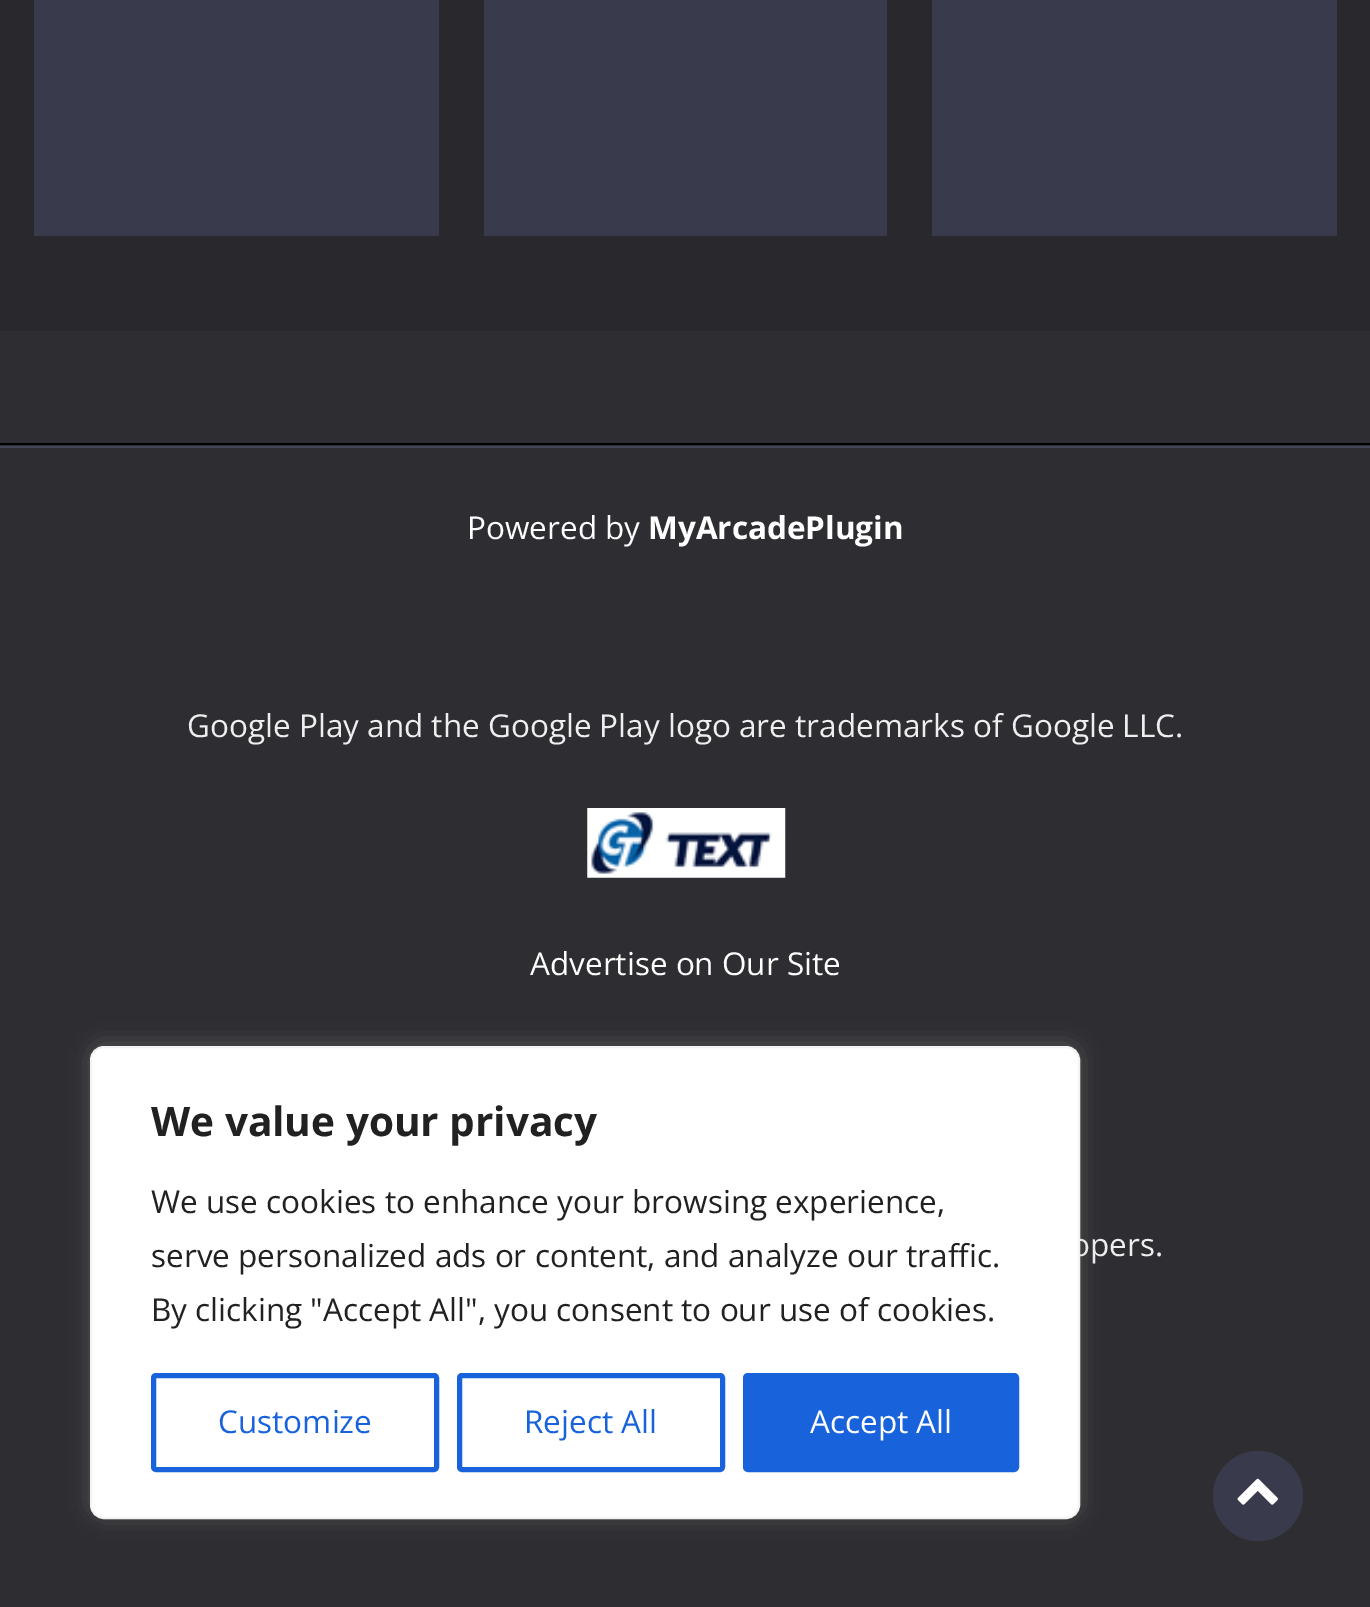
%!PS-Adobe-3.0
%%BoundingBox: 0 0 1370 1607
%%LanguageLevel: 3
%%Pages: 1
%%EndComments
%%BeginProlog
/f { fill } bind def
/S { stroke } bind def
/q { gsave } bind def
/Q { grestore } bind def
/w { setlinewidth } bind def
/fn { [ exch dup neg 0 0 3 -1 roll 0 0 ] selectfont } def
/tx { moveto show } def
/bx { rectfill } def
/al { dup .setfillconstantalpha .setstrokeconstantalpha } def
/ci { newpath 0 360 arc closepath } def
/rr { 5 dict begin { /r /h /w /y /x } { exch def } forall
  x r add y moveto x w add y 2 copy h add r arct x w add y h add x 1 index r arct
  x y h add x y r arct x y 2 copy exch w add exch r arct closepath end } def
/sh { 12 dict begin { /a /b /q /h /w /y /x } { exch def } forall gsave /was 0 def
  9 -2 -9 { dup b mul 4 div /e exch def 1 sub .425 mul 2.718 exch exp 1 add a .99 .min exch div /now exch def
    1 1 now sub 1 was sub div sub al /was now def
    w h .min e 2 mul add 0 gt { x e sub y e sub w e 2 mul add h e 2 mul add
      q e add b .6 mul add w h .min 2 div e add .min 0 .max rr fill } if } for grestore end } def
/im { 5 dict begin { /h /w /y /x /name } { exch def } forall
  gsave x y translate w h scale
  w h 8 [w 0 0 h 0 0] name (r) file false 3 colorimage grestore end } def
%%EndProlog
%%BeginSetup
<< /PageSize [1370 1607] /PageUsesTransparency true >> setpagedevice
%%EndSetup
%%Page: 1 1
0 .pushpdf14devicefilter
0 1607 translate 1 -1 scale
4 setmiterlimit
0.18 0.18 0.196 setrgbcolor
0 0 1370 1607 bx
0.161 0.161 0.176 setrgbcolor
0 0 1370 331 bx
0.224 0.227 0.298 setrgbcolor
34 0 405 236 bx
484 0 403 236 bx
932 0 405 236 bx
0 setgray
0 443 1370 2 bx
0.259 0.271 0.345 setrgbcolor
0 446 1370 2 bx
/OpenSans-Regular 31.5 fn
1 setgray
(Powered by) 467 539 tx
/OpenSans-Bold 31.5 fn
(MyArcadePlugin) 648 539 tx
/OpenSans-Regular 31.5 fn
0.933 setgray
(Google Play and the Google Play logo are trademarks of Google LLC.) 187 737 tx
(image0.raw) 587 808 199 70 im
1 setgray
(Advertise on Our Site) 530 975 tx
0.933 setgray
(opers.) 1071 1256 tx
0.675 0.671 0.671 setrgbcolor
90 1044 990 473 14 11 0.3 sh
1 setgray
91 1047 988 471 13 rr q f Q
0.957 setgray
2 w
S
/OpenSans-Bold 40.5 fn
0.129 setgray
(We value your privacy) 151 1136 tx
/OpenSans-Regular 31.5 fn
(We use cookies to enhance your browsing experience,) 151 1213 tx
(serve personalized ads or content, and analyze our traffic.) 151 1267 tx
(By clicking "Accept All", you consent to our use of cookies.) 151 1321 tx
0.094 0.388 0.863 setrgbcolor
5 w
153.5 1375.5 283 94 2.5 rr S
(Customize) 218 1433 tx
459.5 1375.5 263 94 2.5 rr S
(Reject All) 524 1433 tx
745.5 1375.5 271 94 2.5 rr q f Q
S
1 setgray
(Accept All) 810 1433 tx
0.224 0.227 0.298 setrgbcolor
1258 1496 45 ci f
(image1.raw) 1237 1478 41 27 im
.poppdf14devicefilter showpage
%%EOF
